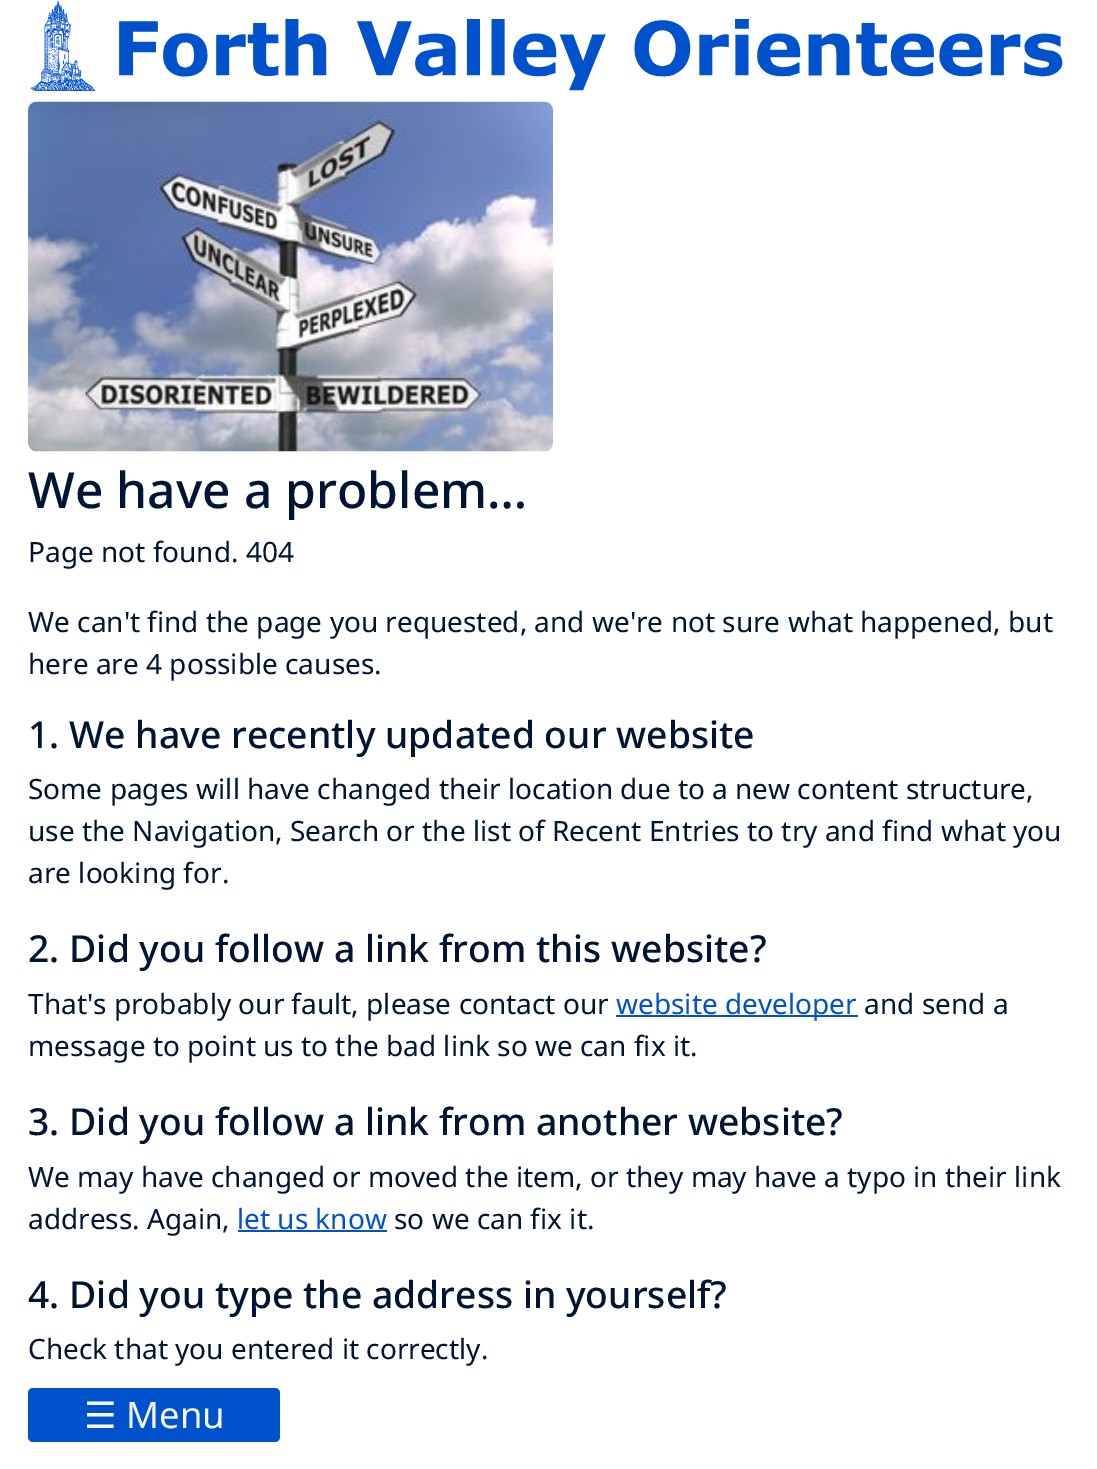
%!PS-Adobe-3.0
%%BoundingBox: 0 0 1097 1469
%%LanguageLevel: 3
%%Pages: 1
%%EndComments
%%BeginProlog
/f { fill } bind def
/fn { [ exch dup neg 0 0 3 -1 roll 0 0 ] selectfont } def
/tx { moveto show } def
/bx { rectfill } def
/rr { 5 dict begin { /r /h /w /y /x } { exch def } forall
  x r add y moveto x w add y 2 copy h add r arct x w add y h add x 1 index r arct
  x y h add x y r arct x y 2 copy exch w add exch r arct closepath end } def
/im { 5 dict begin { /h /w /y /x /name } { exch def } forall
  gsave x y translate w h scale
  w h 8 [w 0 0 h 0 0] name (r) file false 3 colorimage grestore end } def
%%EndProlog
%%BeginSetup
<< /PageSize [1097 1469] >> setpagedevice
%%EndSetup
%%Page: 1 1
0 1469 translate 1 -1 scale
4 setmiterlimit
1 setgray
0 0 1097 1469 bx
(image0.raw) 30 0 1033 91 im
(image1.raw) 28 101 525 351 im
/NotoSans-Medium 49.75 fn
0 0.078 0.2 setrgbcolor
(We have a problem…) 28 508 tx
/NotoSans-Regular 28 fn
(Page not found. 404) 28 562 tx
(We can't find the page you requested, and we're not sure what happened, but) 28 632 tx
(here are 4 possible causes.) 28 674 tx
/NotoSans-Medium 37.3 fn
(1. We have recently updated our website) 28 748 tx
/NotoSans-Regular 28 fn
(Some pages will have changed their location due to a new content structure,) 28 799 tx
(use the Navigation, Search or the list of Recent Entries to try and find what you) 28 841 tx
(are looking for.) 28 883 tx
/NotoSans-Medium 37.3 fn
(2. Did you follow a link from this website?) 28 962 tx
/NotoSans-Regular 28 fn
(That's probably our fault, please contact our) 28 1014 tx
0 0.322 0.8 setrgbcolor
616 1015 242 2 bx
(website developer) 616 1014 tx
0 0.078 0.2 setrgbcolor
(and send a) 864 1014 tx
(message to point us to the bad link so we can fix it.) 28 1056 tx
/NotoSans-Medium 37.3 fn
(3. Did you follow a link from another website?) 28 1135 tx
/NotoSans-Regular 28 fn
(We may have changed or moved the item, or they may have a typo in their link) 28 1187 tx
(address. Again,) 28 1229 tx
0 0.322 0.8 setrgbcolor
(let us know) 237 1229 tx
238 1230 149 2 bx
0 0.078 0.2 setrgbcolor
(so we can fix it.) 394 1229 tx
/NotoSans-Medium 37.3 fn
(4. Did you type the address in yourself?) 28 1308 tx
/NotoSans-Regular 28 fn
(Check that you entered it correctly.) 28 1359 tx
0 0.322 0.8 setrgbcolor
28 1388 252 54 5 rr f
/DejaVuSans-Regular 36.5 fn
0.961 0.976 1 setrgbcolor
(☰) 84 1428 tx
/NotoSans-Regular 36.5 fn
(Menu) 126 1428 tx
showpage
%%EOF
